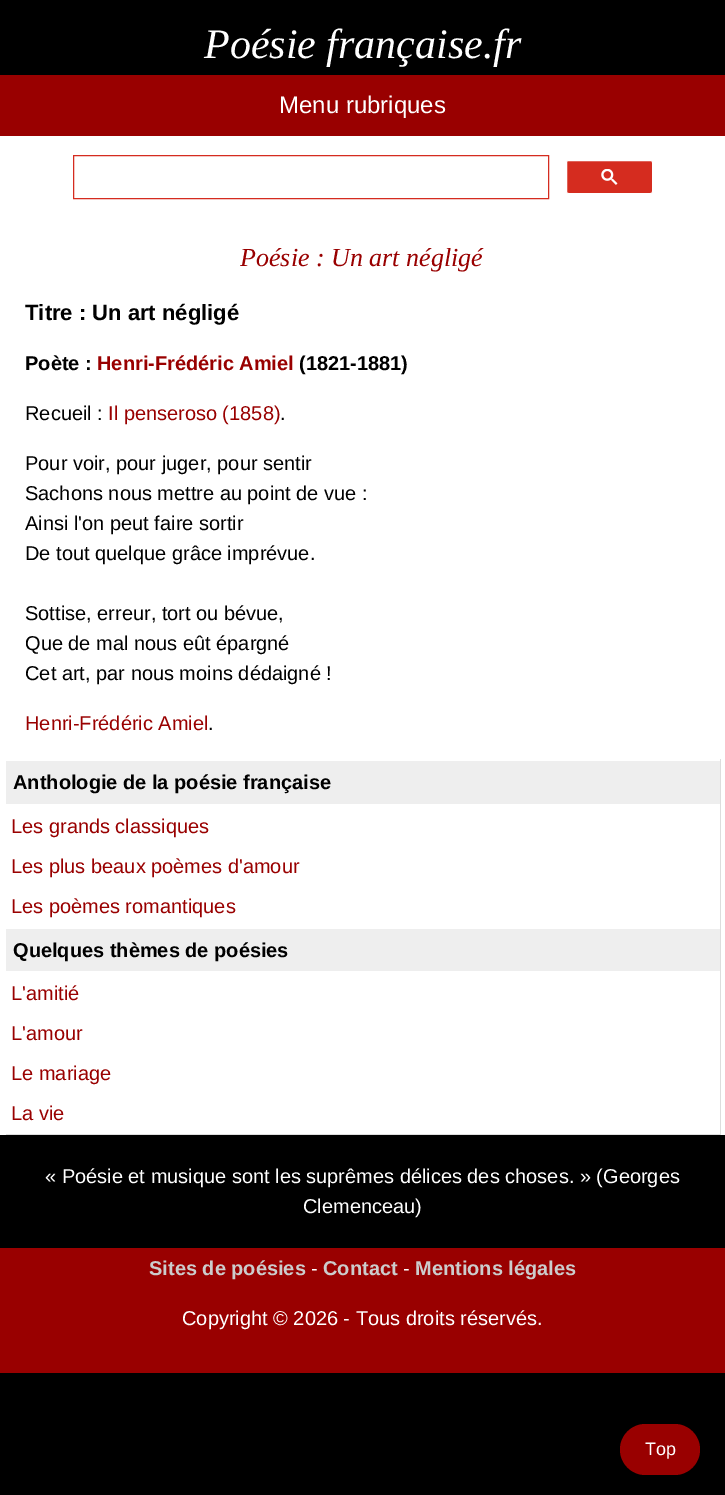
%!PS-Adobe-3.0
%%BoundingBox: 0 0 725 1495
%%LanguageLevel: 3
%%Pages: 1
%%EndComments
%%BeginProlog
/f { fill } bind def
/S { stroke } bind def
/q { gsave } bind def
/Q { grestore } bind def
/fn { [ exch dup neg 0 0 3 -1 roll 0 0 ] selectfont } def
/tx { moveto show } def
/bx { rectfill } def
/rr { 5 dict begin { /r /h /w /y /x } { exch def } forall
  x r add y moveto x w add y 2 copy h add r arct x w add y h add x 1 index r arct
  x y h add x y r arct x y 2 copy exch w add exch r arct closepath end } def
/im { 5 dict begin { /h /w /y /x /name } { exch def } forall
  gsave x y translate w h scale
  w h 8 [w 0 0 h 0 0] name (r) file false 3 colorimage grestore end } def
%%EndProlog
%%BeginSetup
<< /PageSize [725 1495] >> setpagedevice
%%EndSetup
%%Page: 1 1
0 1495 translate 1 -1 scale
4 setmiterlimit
0 setgray
0 0 725 1495 bx
1 setgray
0 136 725 999 bx
/LiberationSerif-Italic 42 fn
(Poésie française.fr) 204 58 tx
0.6 0 0 setrgbcolor
0 75 725 61 bx
/LiberationSans-Regular 24 fn
1 setgray
(Menu rubriques) 279 113 tx
0.835 0.173 0.122 setrgbcolor
73.5 155.5 475 43 rectstroke
566.5 160.5 86 33 2 rr q f Q
1 setgray
S
(image0.raw) 601 169 17 16 im
/LiberationSerif-Italic 26 fn
0.6 0 0 setrgbcolor
(Poésie : Un art négligé) 240 266 tx
/LiberationSans-Bold 22 fn
0 setgray
(Titre : Un art négligé) 25 320 tx
/LiberationSans-Bold 20 fn
(Poète :) 25 370 tx
0.6 0 0 setrgbcolor
(Henri-Frédéric Amiel) 97 370 tx
0 setgray
(\(1821-1881\)) 299 370 tx
/LiberationSans-Regular 20 fn
(Recueil :) 25 420 tx
0.6 0 0 setrgbcolor
(Il penseroso \(1858\)) 108 420 tx
0 setgray
(.) 280 420 tx
(Pour voir, pour juger, pour sentir) 25 470 tx
(Sachons nous mettre au point de vue :) 25 500 tx
(Ainsi l'on peut faire sortir) 25 530 tx
(De tout quelque grâce imprévue.) 25 560 tx
(Sottise, erreur, tort ou bévue,) 25 620 tx
(Que de mal nous eût épargné) 25 650 tx
(Cet art, par nous moins dédaigné !) 25 680 tx
0.6 0 0 setrgbcolor
(Henri-Frédéric Amiel) 25 730 tx
0 setgray
(.) 208 730 tx
0.867 setgray
720 759 1 376 bx
6 1134 715 1 bx
0.933 setgray
6 761 714 43 bx
/LiberationSans-Bold 20 fn
0 setgray
(Anthologie de la poésie française) 13 789 tx
/LiberationSans-Regular 20 fn
0.6 0 0 setrgbcolor
(Les grands classiques) 11 833 tx
(Les plus beaux poèmes d'amour) 11 873 tx
(Les poèmes romantiques) 11 913 tx
0.933 setgray
6 929 714 42 bx
/LiberationSans-Bold 20 fn
0 setgray
(Quelques thèmes de poésies) 13 957 tx
/LiberationSans-Regular 20 fn
0.6 0 0 setrgbcolor
(L'amitié) 11 1000 tx
(L'amour) 11 1040 tx
(Le mariage) 11 1080 tx
(La vie) 11 1120 tx
1 setgray
(« Poésie et musique sont les suprêmes délices des choses. » \(Georges) 45 1183 tx
(Clemenceau\)) 303 1213 tx
0.6 0 0 setrgbcolor
0 1248 725 125 bx
/LiberationSans-Bold 20 fn
0.8 setgray
(Sites de poésies) 149 1275 tx
/LiberationSans-Regular 20 fn
1 setgray
(-) 311 1275 tx
/LiberationSans-Bold 20 fn
0.8 setgray
(Contact) 323 1275 tx
/LiberationSans-Regular 20 fn
1 setgray
(-) 403 1275 tx
/LiberationSans-Bold 20 fn
0.8 setgray
(Mentions légales) 415 1275 tx
/LiberationSans-Regular 20 fn
1 setgray
(Copyright © 2026 - Tous droits réservés.) 182 1325 tx
0.6 0 0 setrgbcolor
620 1424 80 51 25.5 rr f
/LiberationSans-Regular 18 fn
1 setgray
(Top) 645 1455 tx
showpage
%%EOF
